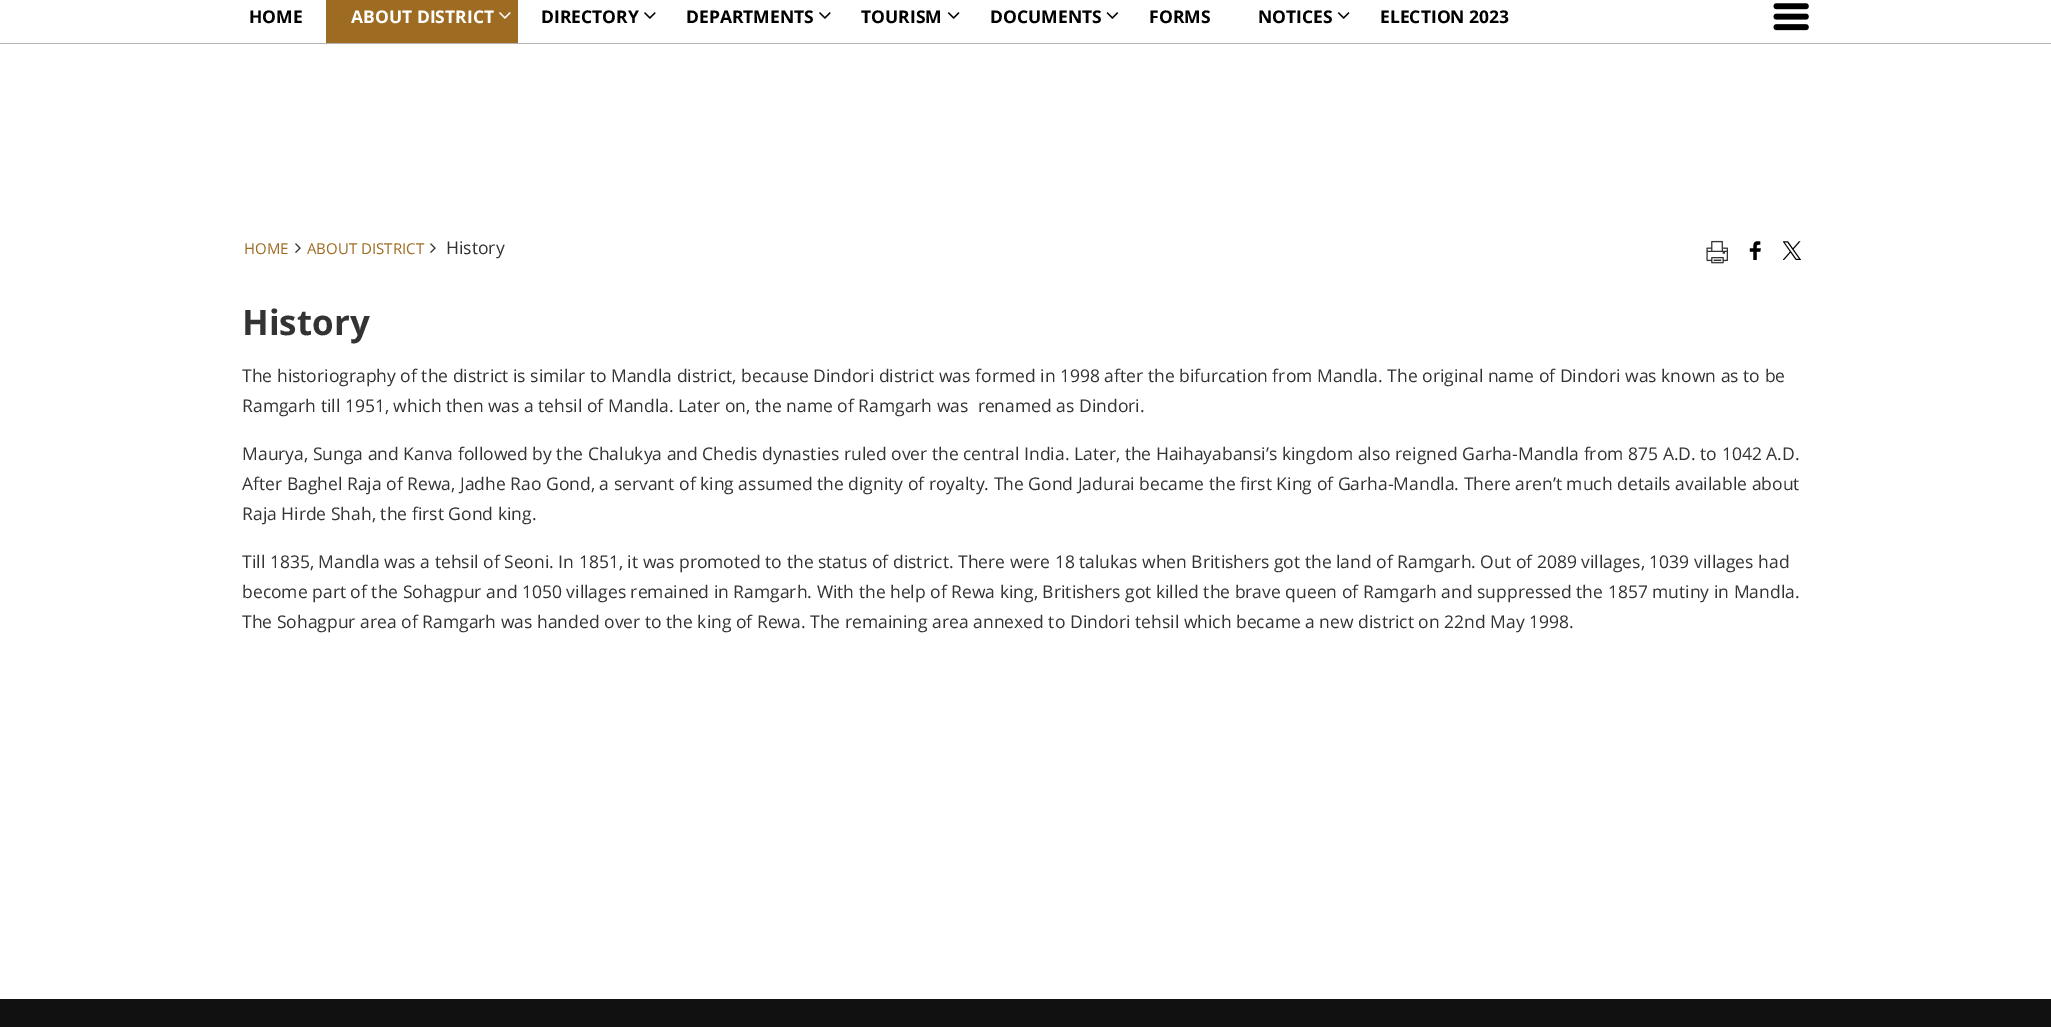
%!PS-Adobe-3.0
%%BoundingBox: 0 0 2051 1027
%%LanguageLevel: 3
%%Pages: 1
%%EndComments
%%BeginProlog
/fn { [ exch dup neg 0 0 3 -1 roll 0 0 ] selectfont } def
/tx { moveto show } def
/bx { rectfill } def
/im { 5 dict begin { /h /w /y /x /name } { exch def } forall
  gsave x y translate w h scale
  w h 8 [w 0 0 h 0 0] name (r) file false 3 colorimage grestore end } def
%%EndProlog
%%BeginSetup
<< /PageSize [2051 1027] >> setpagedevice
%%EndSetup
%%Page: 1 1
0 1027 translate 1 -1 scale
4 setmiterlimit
1 setgray
0 0 2051 1027 bx
0.702 setgray
0 43 2051 1 bx
/OpenSans-Bold 17.5 fn
0 setgray
(HOME) 249 23 tx
0.62 0.42 0.133 setrgbcolor
326 0 192 43 bx
1 setgray
(ABOUT DISTRICT) 351 23 tx
(image0.raw) 499 12 12 7 im
0 setgray
(DIRECTORY) 541 23 tx
(image1.raw) 644 12 12 7 im
(DEPARTMENTS) 686 23 tx
(image1.raw) 819 12 12 7 im
(TOURISM) 861 23 tx
(image2.raw) 947 12 13 7 im
(DOCUMENTS) 990 23 tx
(image3.raw) 1106 12 13 7 im
(FORMS) 1149 23 tx
(NOTICES) 1258 23 tx
(image2.raw) 1337 12 13 7 im
(ELECTION 2023) 1380 23 tx
(image4.raw) 1773 3 36 28 im
/OpenSans-Regular 15 fn
0.62 0.42 0.133 setrgbcolor
(HOME) 244 254 tx
(image5.raw) 295 243 6 10 im
(ABOUT DISTRICT) 307 254 tx
(image5.raw) 430 243 6 10 im
/OpenSans-Regular 17.5 fn
0.2 setgray
(History) 446 254 tx
(image6.raw) 1706 240 22 24 im
(image7.raw) 1749 241 12 19 im
(image8.raw) 1783 241 18 19 im
/OpenSans-Bold 35 fn
(History) 242 335 tx
/OpenSans-Regular 17.5 fn
(The historiography of the district is similar to Mandla district, because Dindori district was formed in 1998 after the bifurcation from Mandla. The original name of Dindori was known as to be) 242 382 tx
(Ramgarh till 1951, which then was a tehsil of Mandla. Later on, the name of Ramgarh was  renamed as Dindori.) 242 412 tx
(Maurya, Sunga and Kanva followed by the Chalukya and Chedis dynasties ruled over the central India. Later, the Haihayabansi’s kingdom also reigned Garha-Mandla from 875 A.D. to 1042 A.D.) 242 460 tx
(After Baghel Raja of Rewa, Jadhe Rao Gond, a servant of king assumed the dignity of royalty. The Gond Jadurai became the first King of Garha-Mandla. There aren’t much details available about) 242 490 tx
(Raja Hirde Shah, the first Gond king.) 242 520 tx
(Till 1835, Mandla was a tehsil of Seoni. In 1851, it was promoted to the status of district. There were 18 talukas when Britishers got the land of Ramgarh. Out of 2089 villages, 1039 villages had) 242 568 tx
(become part of the Sohagpur and 1050 villages remained in Ramgarh. With the help of Rewa king, Britishers got killed the brave queen of Ramgarh and suppressed the 1857 mutiny in Mandla.) 242 598 tx
(The Sohagpur area of Ramgarh was handed over to the king of Rewa. The remaining area annexed to Dindori tehsil which became a new district on 22nd May 1998.) 242 628 tx
0.067 setgray
0 999 2051 28 bx
showpage
%%EOF
